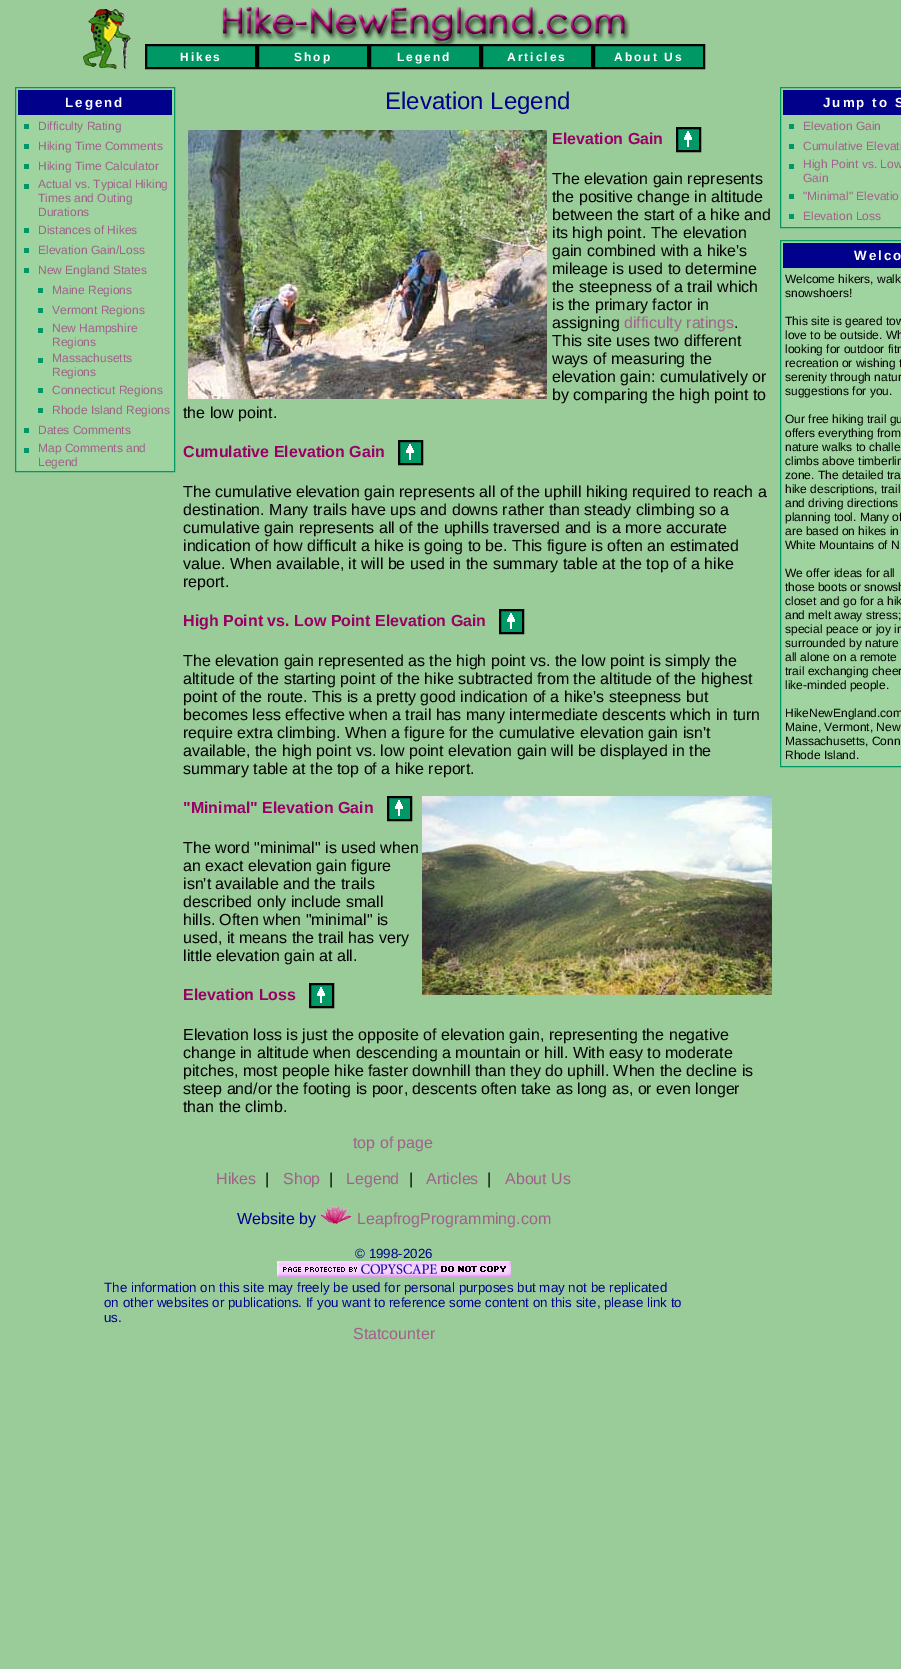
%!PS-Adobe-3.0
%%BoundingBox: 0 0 901 1669
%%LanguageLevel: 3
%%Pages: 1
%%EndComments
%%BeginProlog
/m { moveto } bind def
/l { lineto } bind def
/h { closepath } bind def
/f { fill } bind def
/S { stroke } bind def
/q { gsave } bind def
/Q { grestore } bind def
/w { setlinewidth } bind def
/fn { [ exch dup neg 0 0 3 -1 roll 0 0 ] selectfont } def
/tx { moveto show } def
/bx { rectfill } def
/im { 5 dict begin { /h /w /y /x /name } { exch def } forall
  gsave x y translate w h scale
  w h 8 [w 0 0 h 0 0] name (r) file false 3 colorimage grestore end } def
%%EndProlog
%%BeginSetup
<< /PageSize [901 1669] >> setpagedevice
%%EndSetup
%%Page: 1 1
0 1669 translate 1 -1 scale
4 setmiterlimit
0.6 0.8 0.6 setrgbcolor
0 0 901 1669 bx
(image0.raw) 83 9 48 60 im
(image1.raw) 221 6 409 38 im
0 0.6 0.4 setrgbcolor
146 45 m 256 45 l 256 68 l 146 68 l h q f Q
0 setgray
2 w
S
/LiberationSans-Bold 12 fn
1 setgray
180 61 m 2 0 (Hikes) ashow
0 0.6 0.4 setrgbcolor
258 45 m 368 45 l 368 68 l 258 68 l h q f Q
0 setgray
S
1 setgray
294 61 m 2 0 (Shop) ashow
0 0.6 0.4 setrgbcolor
370 45 m 480 45 l 480 68 l 370 68 l h q f Q
0 setgray
S
1 setgray
397 61 m 2 0 (Legend) ashow
0 0.6 0.4 setrgbcolor
482 45 m 592 45 l 592 68 l 482 68 l h q f Q
0 setgray
S
1 setgray
507 61 m 2 0 (Articles) ashow
0 0.6 0.4 setrgbcolor
594 45 m 704 45 l 704 68 l 594 68 l h q f Q
0 setgray
S
1 setgray
614 61 m 2 0 (About Us) ashow
0.624 0.827 0.624 setrgbcolor
15.5 87.5 m 174.5 87.5 l 174.5 471.5 l 15.5 471.5 l h q f Q
0 0.6 0.4 setrgbcolor
1 w
S
0 0 0.545 setrgbcolor
18 90 154 25 bx
/LiberationSans-Bold 13.35 fn
1 setgray
65 107 m 2 0 (Legend) ashow
0 0.6 0.4 setrgbcolor
24 124 5 5 bx
/LiberationSans-Regular 12 fn
0.627 0.38 0.545 setrgbcolor
(Difficulty Rating) 38 130 tx
0 0.6 0.4 setrgbcolor
24 144 5 5 bx
0.627 0.38 0.545 setrgbcolor
(Hiking Time Comments) 38 150 tx
0 0.6 0.4 setrgbcolor
24 164 5 5 bx
0.627 0.38 0.545 setrgbcolor
(Hiking Time Calculator) 38 170 tx
0 0.6 0.4 setrgbcolor
24 184 5 5 bx
0.627 0.38 0.545 setrgbcolor
(Actual vs. Typical Hiking) 38 188 tx
(Times and Outing) 38 202 tx
(Durations) 38 216 tx
0 0.6 0.4 setrgbcolor
24 228 5 5 bx
0.627 0.38 0.545 setrgbcolor
(Distances of Hikes) 38 234 tx
0 0.6 0.4 setrgbcolor
24 248 5 5 bx
0.627 0.38 0.545 setrgbcolor
(Elevation Gain/Loss) 38 254 tx
0 0.6 0.4 setrgbcolor
24 268 5 5 bx
0.627 0.38 0.545 setrgbcolor
(New England States) 38 274 tx
0 0.6 0.4 setrgbcolor
38 288 5 5 bx
0.627 0.38 0.545 setrgbcolor
(Maine Regions) 52 294 tx
0 0.6 0.4 setrgbcolor
38 308 5 5 bx
0.627 0.38 0.545 setrgbcolor
(Vermont Regions) 52 314 tx
0 0.6 0.4 setrgbcolor
38 328 5 5 bx
0.627 0.38 0.545 setrgbcolor
(New Hampshire) 52 332 tx
(Regions) 52 346 tx
0 0.6 0.4 setrgbcolor
38 358 5 5 bx
0.627 0.38 0.545 setrgbcolor
(Massachusetts) 52 362 tx
(Regions) 52 376 tx
0 0.6 0.4 setrgbcolor
38 388 5 5 bx
0.627 0.38 0.545 setrgbcolor
(Connecticut Regions) 52 394 tx
0 0.6 0.4 setrgbcolor
38 408 5 5 bx
0.627 0.38 0.545 setrgbcolor
(Rhode Island Regions) 52 414 tx
0 0.6 0.4 setrgbcolor
24 428 5 5 bx
0.627 0.38 0.545 setrgbcolor
(Dates Comments) 38 434 tx
0 0.6 0.4 setrgbcolor
24 448 5 5 bx
0.627 0.38 0.545 setrgbcolor
(Map Comments and) 38 452 tx
(Legend) 38 466 tx
/LiberationSans-Regular 24 fn
0 0 0.545 setrgbcolor
(Elevation Legend) 385 109 tx
(image2.raw) 188 130 359 269 im
/LiberationSans-Bold 16 fn
0.6 0 0.4 setrgbcolor
(Elevation Gain) 552 144 tx
0 0.6 0.4 setrgbcolor
678 129 21 21 bx
(image3.raw) 684 131 8 16 im
0 setgray
2 w
677 128 23 23 rectstroke
/LiberationSans-Regular 16 fn
(The elevation gain represents) 552 184 tx
(the positive change in altitude) 552 202 tx
(between the start of a hike and) 552 220 tx
(its high point. The elevation) 552 238 tx
(gain combined with a hike's) 552 256 tx
(mileage is used to determine) 552 274 tx
(the steepness of a trail which) 552 292 tx
(is the primary factor in) 552 310 tx
(assigning) 552 328 tx
0.627 0.38 0.545 setrgbcolor
(difficulty ratings) 624 328 tx
0 setgray
(.) 734 328 tx
(This site uses two different) 552 346 tx
(ways of measuring the) 552 364 tx
(elevation gain: cumulatively or) 552 382 tx
(by comparing the high point to) 552 400 tx
(the low point.) 183 418 tx
/LiberationSans-Bold 16 fn
0.6 0 0.4 setrgbcolor
(Cumulative Elevation Gain) 183 457 tx
0 0.6 0.4 setrgbcolor
400 442 21 21 bx
(image3.raw) 406 444 8 16 im
0 setgray
399 441 23 23 rectstroke
/LiberationSans-Regular 16 fn
(The cumulative elevation gain represents all of the uphill hiking required to reach a) 183 497 tx
(destination. Many trails have ups and downs rather than steady climbing so a) 183 515 tx
(cumulative gain represents all of the uphills traversed and is a more accurate) 183 533 tx
(indication of how difficult a hike is going to be. This figure is often an estimated) 183 551 tx
(value. When available, it will be used in the summary table at the top of a hike) 183 569 tx
(report.) 183 587 tx
/LiberationSans-Bold 16 fn
0.6 0 0.4 setrgbcolor
(High Point vs. Low Point Elevation Gain) 183 626 tx
0 0.6 0.4 setrgbcolor
501 611 21 21 bx
(image3.raw) 507 613 8 16 im
0 setgray
500 610 23 23 rectstroke
/LiberationSans-Regular 16 fn
(The elevation gain represented as the high point vs. the low point is simply the) 183 666 tx
(altitude of the starting point of the hike subtracted from the altitude of the highest) 183 684 tx
(point of the route. This is a pretty good indication of a hike's steepness but) 183 702 tx
(becomes less effective when a trail has many intermediate descents which in turn) 183 720 tx
(require extra climbing. When a figure for the cumulative elevation gain isn't) 183 738 tx
(available, the high point vs. low point elevation gain will be displayed in the) 183 756 tx
(summary table at the top of a hike report.) 183 774 tx
/LiberationSans-Bold 16 fn
0.6 0 0.4 setrgbcolor
("Minimal" Elevation Gain) 183 813 tx
0 0.6 0.4 setrgbcolor
389 798 21 21 bx
(image3.raw) 395 800 8 16 im
0 setgray
388 797 23 23 rectstroke
(image4.raw) 422 796 350 199 im
/LiberationSans-Regular 16 fn
(The word "minimal" is used when) 183 853 tx
(an exact elevation gain figure) 183 871 tx
(isn't available and the trails) 183 889 tx
(described only include small) 183 907 tx
(hills. Often when "minimal" is) 183 925 tx
(used, it means the trail has very) 183 943 tx
(little elevation gain at all.) 183 961 tx
/LiberationSans-Bold 16 fn
0.6 0 0.4 setrgbcolor
(Elevation Loss) 183 1000 tx
0 0.6 0.4 setrgbcolor
311 985 21 21 bx
(image3.raw) 317 987 8 16 im
0 setgray
310 984 23 23 rectstroke
/LiberationSans-Regular 16 fn
(Elevation loss is just the opposite of elevation gain, representing the negative) 183 1040 tx
(change in altitude when descending a mountain or hill. With easy to moderate) 183 1058 tx
(pitches, most people hike faster downhill than they do uphill. When the decline is) 183 1076 tx
(steep and/or the footing is poor, descents often take as long as, or even longer) 183 1094 tx
(than the climb.) 183 1112 tx
0.624 0.827 0.624 setrgbcolor
780.5 87.5 m 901.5 87.5 l 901.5 227.5 l 780.5 227.5 l h q f Q
0 0.6 0.4 setrgbcolor
1 w
S
0 0 0.545 setrgbcolor
783 90 118 25 bx
/LiberationSans-Bold 13.35 fn
1 setgray
823 107 m 2 0 (Jump to S) ashow
0 0.6 0.4 setrgbcolor
789 124 5 5 bx
/LiberationSans-Regular 12 fn
0.627 0.38 0.545 setrgbcolor
(Elevation Gain) 803 130 tx
0 0.6 0.4 setrgbcolor
789 144 5 5 bx
0.627 0.38 0.545 setrgbcolor
(Cumulative Elevati) 803 150 tx
0 0.6 0.4 setrgbcolor
789 164 5 5 bx
0.627 0.38 0.545 setrgbcolor
(High Point vs. Low) 803 168 tx
(Gain) 803 182 tx
0 0.6 0.4 setrgbcolor
789 194 5 5 bx
0.627 0.38 0.545 setrgbcolor
("Minimal" Elevatio) 803 200 tx
0 0.6 0.4 setrgbcolor
789 214 5 5 bx
0.627 0.38 0.545 setrgbcolor
(Elevation Loss) 803 220 tx
0.624 0.827 0.624 setrgbcolor
780.5 240.5 m 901.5 240.5 l 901.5 766.5 l 780.5 766.5 l h q f Q
0 0.6 0.4 setrgbcolor
S
0 0 0.545 setrgbcolor
783 243 118 25 bx
/LiberationSans-Bold 13.35 fn
1 setgray
854 260 m 2 0 (Welco) ashow
/LiberationSans-Regular 12 fn
0 setgray
(Welcome hikers, walk) 785 283 tx
(snowshoers!) 785 297 tx
(This site is geared tow) 785 325 tx
(love to be outside. Wh) 785 339 tx
(looking for outdoor fitn) 785 353 tx
(recreation or wishing t) 785 367 tx
(serenity through natur) 785 381 tx
(suggestions for you.) 785 395 tx
(Our free hiking trail gu) 785 423 tx
(offers everything from) 785 437 tx
(nature walks to challe) 785 451 tx
(climbs above timberlin) 785 465 tx
(zone. The detailed tra) 785 479 tx
(hike descriptions, trail) 785 493 tx
(and driving directions) 785 507 tx
(planning tool. Many of) 785 521 tx
(are based on hikes in) 785 535 tx
(White Mountains of N) 785 549 tx
(We offer ideas for all) 785 577 tx
(those boots or snowsh) 785 591 tx
(closet and go for a hik) 785 605 tx
(and melt away stress;) 785 619 tx
(special peace or joy in) 785 633 tx
(surrounded by nature) 785 647 tx
(all alone on a remote) 785 661 tx
(trail exchanging cheer) 785 675 tx
(like-minded people.) 785 689 tx
(HikeNewEngland.com) 785 717 tx
(Maine, Vermont, New) 785 731 tx
(Massachusetts, Conn) 785 745 tx
(Rhode Island.) 785 759 tx
/LiberationSans-Regular 16 fn
0.627 0.38 0.545 setrgbcolor
(top of page) 353 1148 tx
(Hikes) 216 1184 tx
0 setgray
(|) 265 1184 tx
0.627 0.38 0.545 setrgbcolor
(Shop) 283 1184 tx
0 setgray
(|) 329 1184 tx
0.627 0.38 0.545 setrgbcolor
(Legend) 346 1184 tx
0 setgray
(|) 409 1184 tx
0.627 0.38 0.545 setrgbcolor
(Articles) 426 1184 tx
0 setgray
(|) 487 1184 tx
0.627 0.38 0.545 setrgbcolor
(About Us) 505 1184 tx
0 0 0.545 setrgbcolor
(Website by) 237 1224 tx
(image5.raw) 320 1206 32 18 im
0.627 0.38 0.545 setrgbcolor
(LeapfrogProgramming.com) 357 1224 tx
/LiberationSans-Regular 13.35 fn
0 0 0.545 setrgbcolor
(© 1998-2026) 355 1258 tx
(image6.raw) 277 1261 234 16 im
(The information on this site may freely be used for personal purposes but may not be replicated) 104 1292 tx
(on other websites or publications. If you want to reference some content on this site, please link to) 104 1307 tx
(us.) 104 1322 tx
/LiberationSans-Regular 16 fn
0.627 0.38 0.545 setrgbcolor
(Statcounter) 353 1339 tx
showpage
%%EOF
